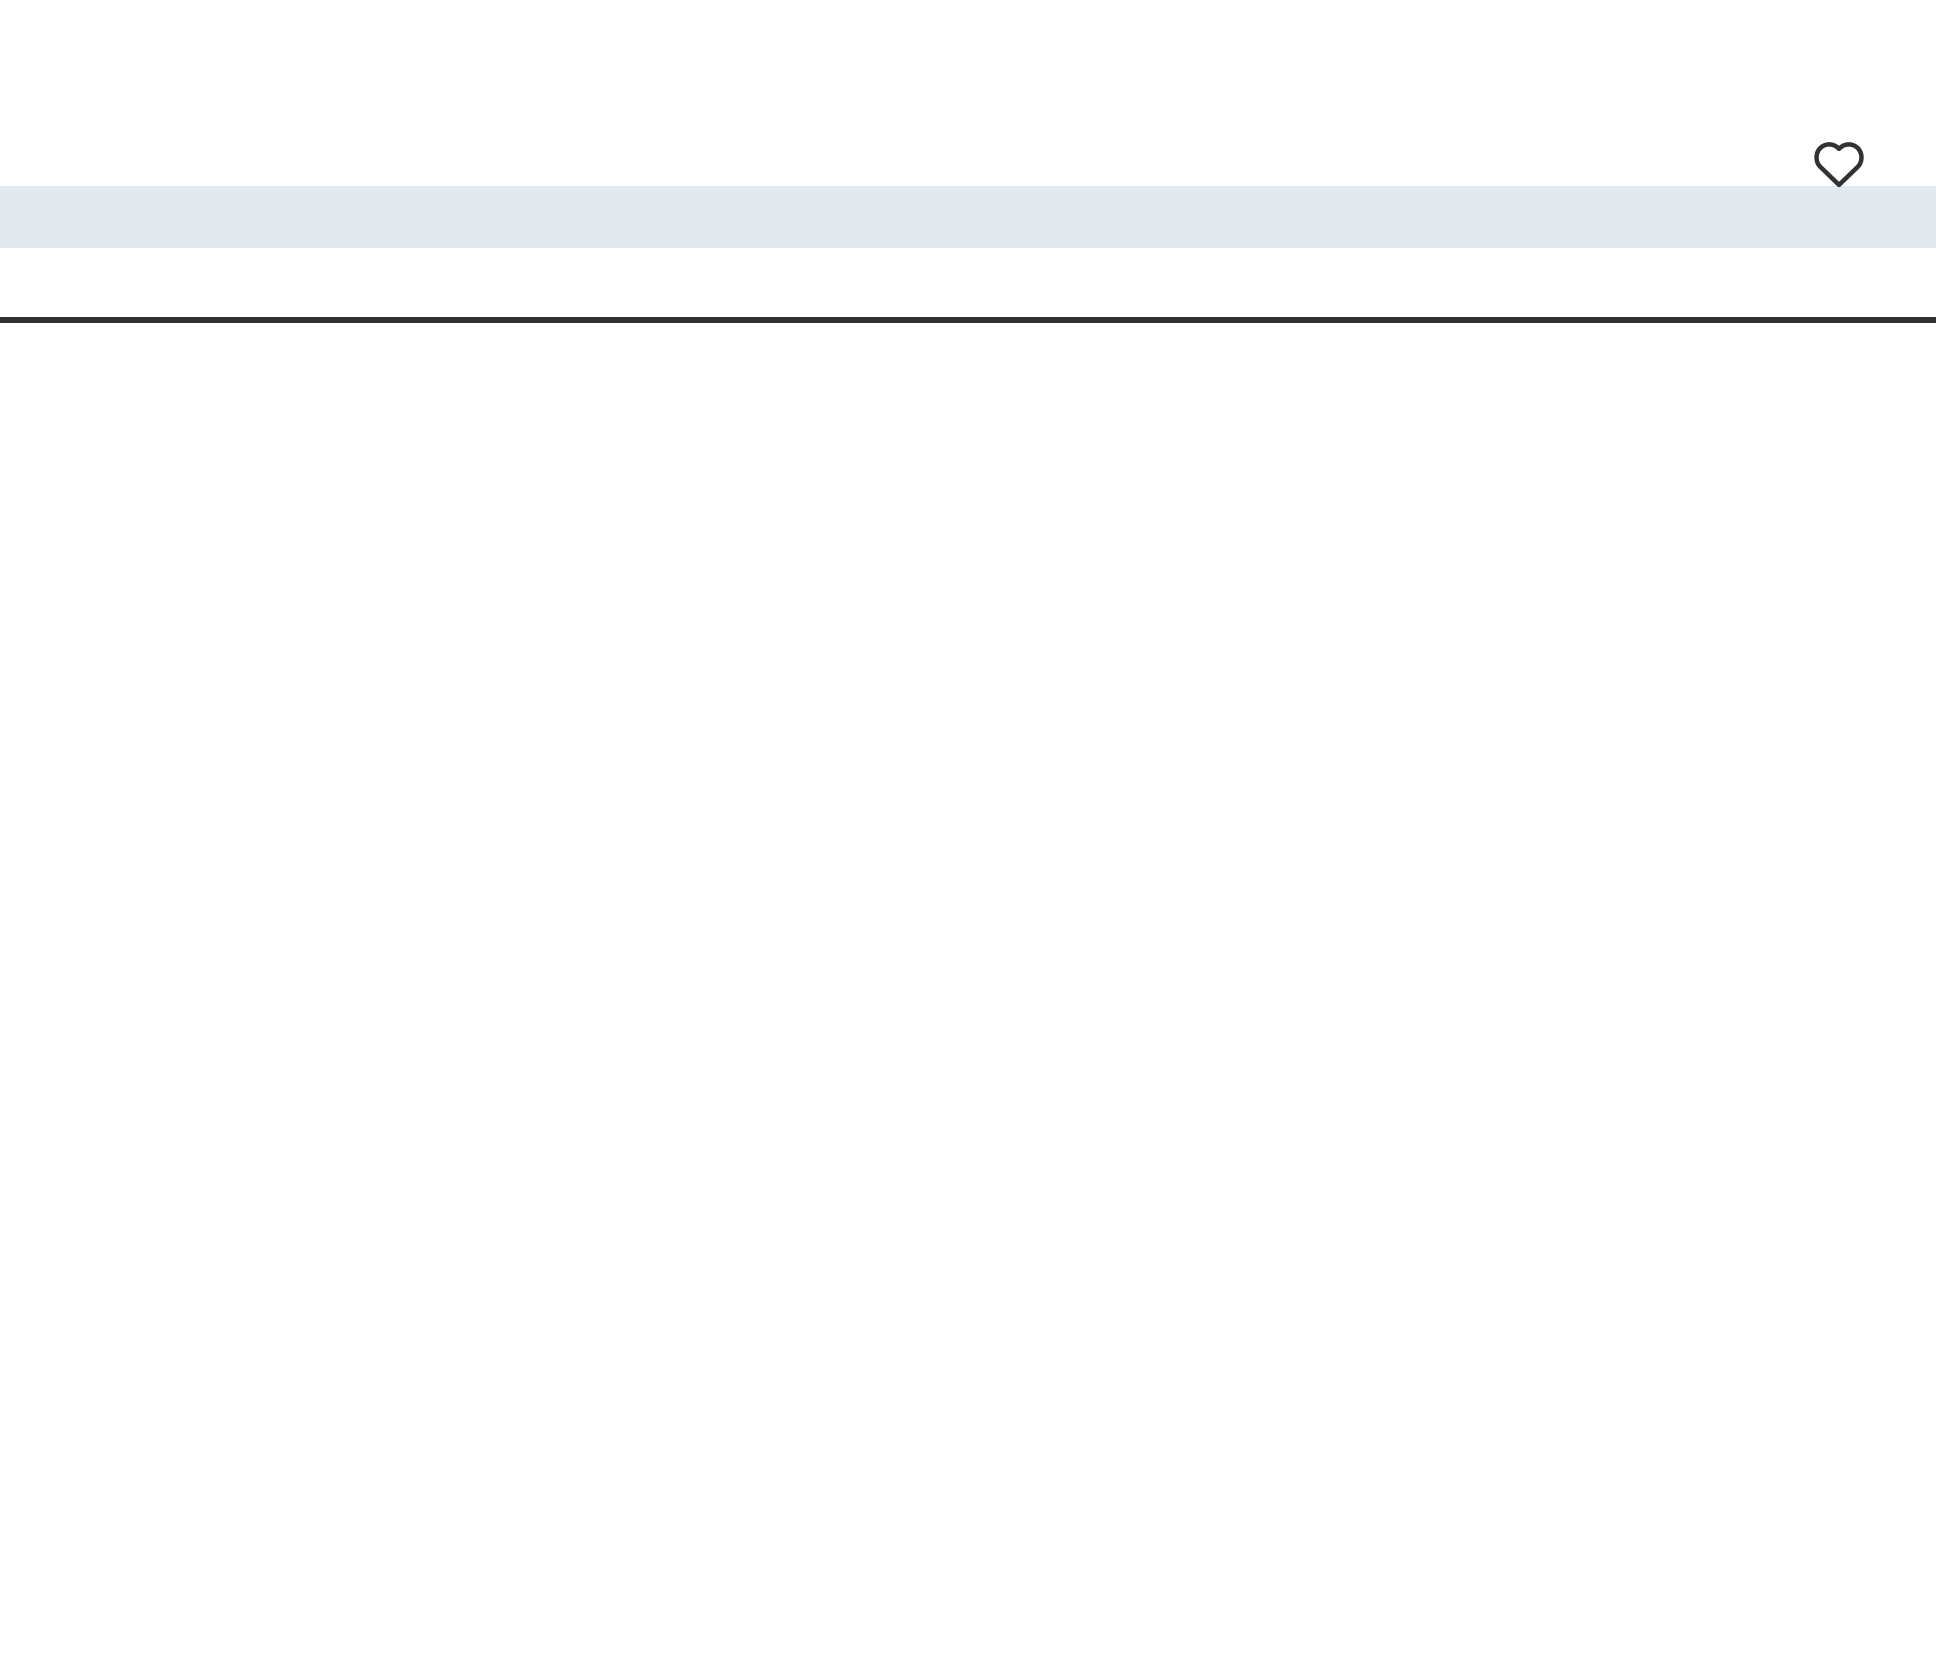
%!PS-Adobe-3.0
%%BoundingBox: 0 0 1936 1680
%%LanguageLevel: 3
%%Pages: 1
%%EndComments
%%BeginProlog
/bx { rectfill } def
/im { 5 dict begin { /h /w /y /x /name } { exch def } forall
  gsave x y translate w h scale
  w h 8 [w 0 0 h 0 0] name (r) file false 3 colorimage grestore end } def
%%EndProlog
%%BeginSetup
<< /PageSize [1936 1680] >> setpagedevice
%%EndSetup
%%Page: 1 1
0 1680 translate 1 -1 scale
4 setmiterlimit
1 setgray
0 0 1936 1680 bx
0.886 0.918 0.941 setrgbcolor
0 186 1936 62 bx
(image0.raw) 1814 142 50 46 im
0.196 setgray
0 317 1936 6 bx
showpage
%%EOF
